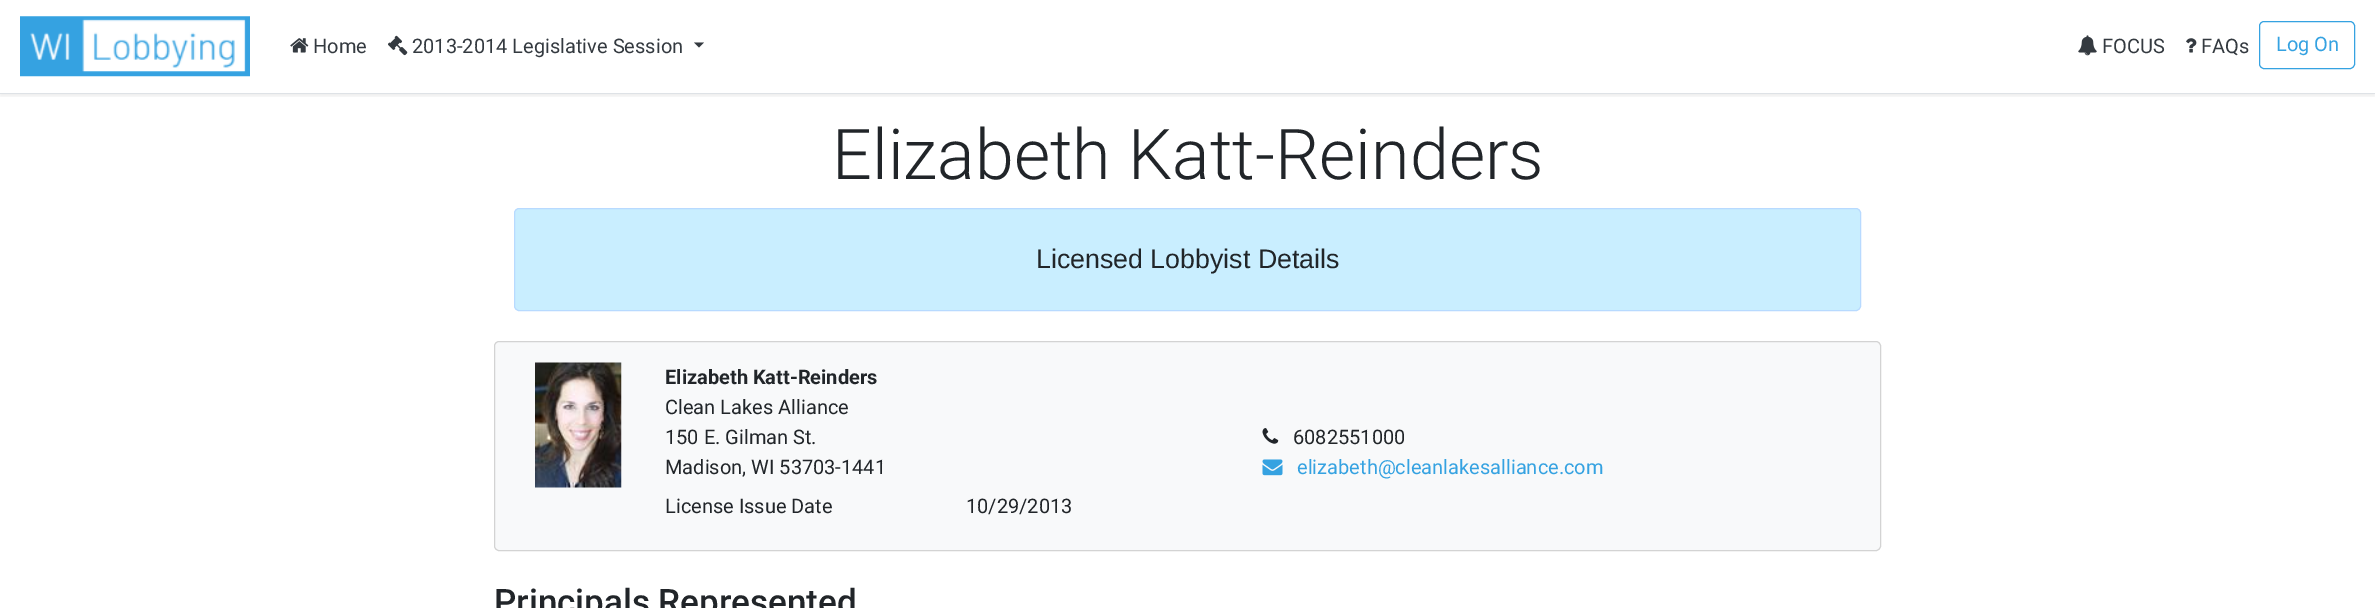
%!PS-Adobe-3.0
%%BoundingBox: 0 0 2375 608
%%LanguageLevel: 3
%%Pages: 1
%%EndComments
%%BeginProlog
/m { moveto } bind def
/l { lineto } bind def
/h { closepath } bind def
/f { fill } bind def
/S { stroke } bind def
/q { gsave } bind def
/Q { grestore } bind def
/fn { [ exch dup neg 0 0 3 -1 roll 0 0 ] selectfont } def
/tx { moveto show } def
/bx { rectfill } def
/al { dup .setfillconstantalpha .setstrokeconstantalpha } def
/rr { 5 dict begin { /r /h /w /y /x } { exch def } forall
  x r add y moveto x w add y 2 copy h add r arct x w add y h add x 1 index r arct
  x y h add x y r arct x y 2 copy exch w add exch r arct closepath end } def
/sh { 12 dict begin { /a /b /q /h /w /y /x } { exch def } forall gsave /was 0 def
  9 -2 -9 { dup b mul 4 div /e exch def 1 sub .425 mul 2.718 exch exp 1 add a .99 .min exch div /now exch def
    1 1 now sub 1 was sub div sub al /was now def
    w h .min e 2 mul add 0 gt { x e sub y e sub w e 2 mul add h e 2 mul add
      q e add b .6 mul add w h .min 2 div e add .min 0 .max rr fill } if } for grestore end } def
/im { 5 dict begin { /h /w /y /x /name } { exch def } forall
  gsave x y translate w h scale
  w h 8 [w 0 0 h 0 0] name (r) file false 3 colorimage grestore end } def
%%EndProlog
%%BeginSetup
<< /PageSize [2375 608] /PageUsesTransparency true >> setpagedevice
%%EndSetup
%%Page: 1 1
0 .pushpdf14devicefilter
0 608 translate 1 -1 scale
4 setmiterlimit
1 setgray
0 0 2375 608 bx
q
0 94 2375 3 rectclip
0 setgray
0 3 2375 93 0 2.5 0.07 sh
Q
0.871 0.886 0.902 setrgbcolor
0 93 2375 1 bx
(image0.raw) 20 16 230 61 im
(image1.raw) 290 38 19 15 im
/Roboto-Regular 20 fn
0.204 0.227 0.251 setrgbcolor
(Home) 313 53 tx
(image2.raw) 388 35 20 21 im
(2013-2014 Legislative Session) 412 53 tx
694 42.5 m 704 42.5 l 699 47.5 l h f
(image3.raw) 2078 35 19 21 im
(FOCUS) 2102 53 tx
(image4.raw) 2186 38 11 15 im
(FAQs) 2201 53 tx
0.208 0.635 0.882 setrgbcolor
2259.5 21.5 95 47 4.5 rr S
(Log On) 2276 51 tx
/Roboto-Light 70 fn
0.129 0.145 0.161 setrgbcolor
(Elizabeth Katt-Reinders) 832 179 tx
0.788 0.933 1 setrgbcolor
514.5 208.5 1346 102 4.5 rr q f Q
0.722 0.855 1 setrgbcolor
S
/LiberationSans-Regular 26.75 fn
0.129 0.145 0.161 setrgbcolor
(Licensed Lobbyist Details) 1036 268 tx
0.973 0.976 0.98 setrgbcolor
494.5 341.5 1386 209 4.5 rr q f Q
0.827 setgray
S
(image5.raw) 535 362 87 126 im
/Roboto-Bold 20 fn
0.129 0.145 0.161 setrgbcolor
(Elizabeth Katt-Reinders) 665 384 tx
/Roboto-Regular 20 fn
(Clean Lakes Alliance) 665 414 tx
(150 E. Gilman St.) 665 444 tx
(Madison, WI 53703-1441) 665 474 tx
(image6.raw) 1262 428 17 16 im
(6082551000) 1293 444 tx
(image7.raw) 1262 459 21 17 im
0.208 0.635 0.882 setrgbcolor
(elizabeth@cleanlakesalliance.com) 1297 474 tx
0.129 0.145 0.161 setrgbcolor
(License Issue Date) 665 513 tx
(10/29/2013) 966 513 tx
/Roboto-Medium 35 fn
(Principals Represented) 494 614 tx
.poppdf14devicefilter showpage
%%EOF
